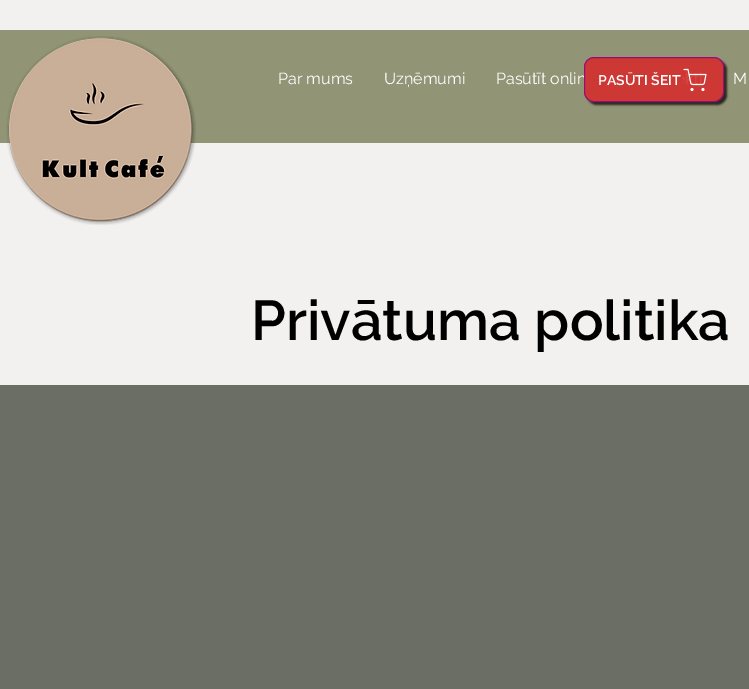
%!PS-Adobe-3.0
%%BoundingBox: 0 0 749 689
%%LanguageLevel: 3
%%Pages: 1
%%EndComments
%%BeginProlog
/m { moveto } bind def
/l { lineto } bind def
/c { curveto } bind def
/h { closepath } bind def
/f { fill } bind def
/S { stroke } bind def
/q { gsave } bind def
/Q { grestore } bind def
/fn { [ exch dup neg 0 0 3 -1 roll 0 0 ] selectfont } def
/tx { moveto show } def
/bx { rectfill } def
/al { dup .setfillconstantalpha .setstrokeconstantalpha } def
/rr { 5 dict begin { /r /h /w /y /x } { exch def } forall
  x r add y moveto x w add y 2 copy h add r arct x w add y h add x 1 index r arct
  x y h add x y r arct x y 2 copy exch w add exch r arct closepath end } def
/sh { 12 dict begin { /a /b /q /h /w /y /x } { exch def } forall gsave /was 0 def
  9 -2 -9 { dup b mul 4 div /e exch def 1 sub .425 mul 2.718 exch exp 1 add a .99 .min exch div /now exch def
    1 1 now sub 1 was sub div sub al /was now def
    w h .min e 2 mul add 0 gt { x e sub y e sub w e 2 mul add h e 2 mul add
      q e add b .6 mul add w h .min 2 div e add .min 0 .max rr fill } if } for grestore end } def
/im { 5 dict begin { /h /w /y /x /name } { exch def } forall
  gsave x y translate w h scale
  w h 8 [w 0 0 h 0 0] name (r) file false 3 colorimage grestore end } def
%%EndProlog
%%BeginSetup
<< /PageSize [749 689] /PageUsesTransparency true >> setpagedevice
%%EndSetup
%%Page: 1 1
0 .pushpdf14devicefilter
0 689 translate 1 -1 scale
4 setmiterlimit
0.949 0.945 0.941 setrgbcolor
0 0 749 689 bx
0.569 0.584 0.459 setrgbcolor
0 30 749 113 bx
(image0.raw) 6 36 190 189 im
/Raleway-Regular 16 fn
1 setgray
(Par mums) 278 84 tx
(Uzņēmumi) 384 84 tx
(Pasūtīt onlin) 496 84 tx
(M) 733 84 tx
q
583 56 m 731 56 l 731 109 l 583 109 l h 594 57 m 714 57 l 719.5 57 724 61.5 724 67 c 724 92 l 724 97.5 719.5 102 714 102 c 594 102 l 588.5 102 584 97.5 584 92 c 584 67 l 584 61.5 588.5 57 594 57 c h eoclip newpath
0 setgray
587 60 140 45 10 1 0.73 sh
Q
0.87 al
0.843 0.165 0.165 setrgbcolor
584.5 57.5 139 44 9.5 rr f
1 al
0.588 0.059 0.439 setrgbcolor
584.5 57.5 139 44 9.5 rr S
/Raleway-SemiBold 14 fn
1 setgray
(PASŪTI ŠEIT) 598 85 tx
(image1.raw) 683 68 24 24 im
/Raleway-SemiBold 56 fn
0 setgray
(Privātuma politika) 251 340 tx
0.416 0.431 0.392 setrgbcolor
0 385 749 304 bx
.poppdf14devicefilter showpage
%%EOF
